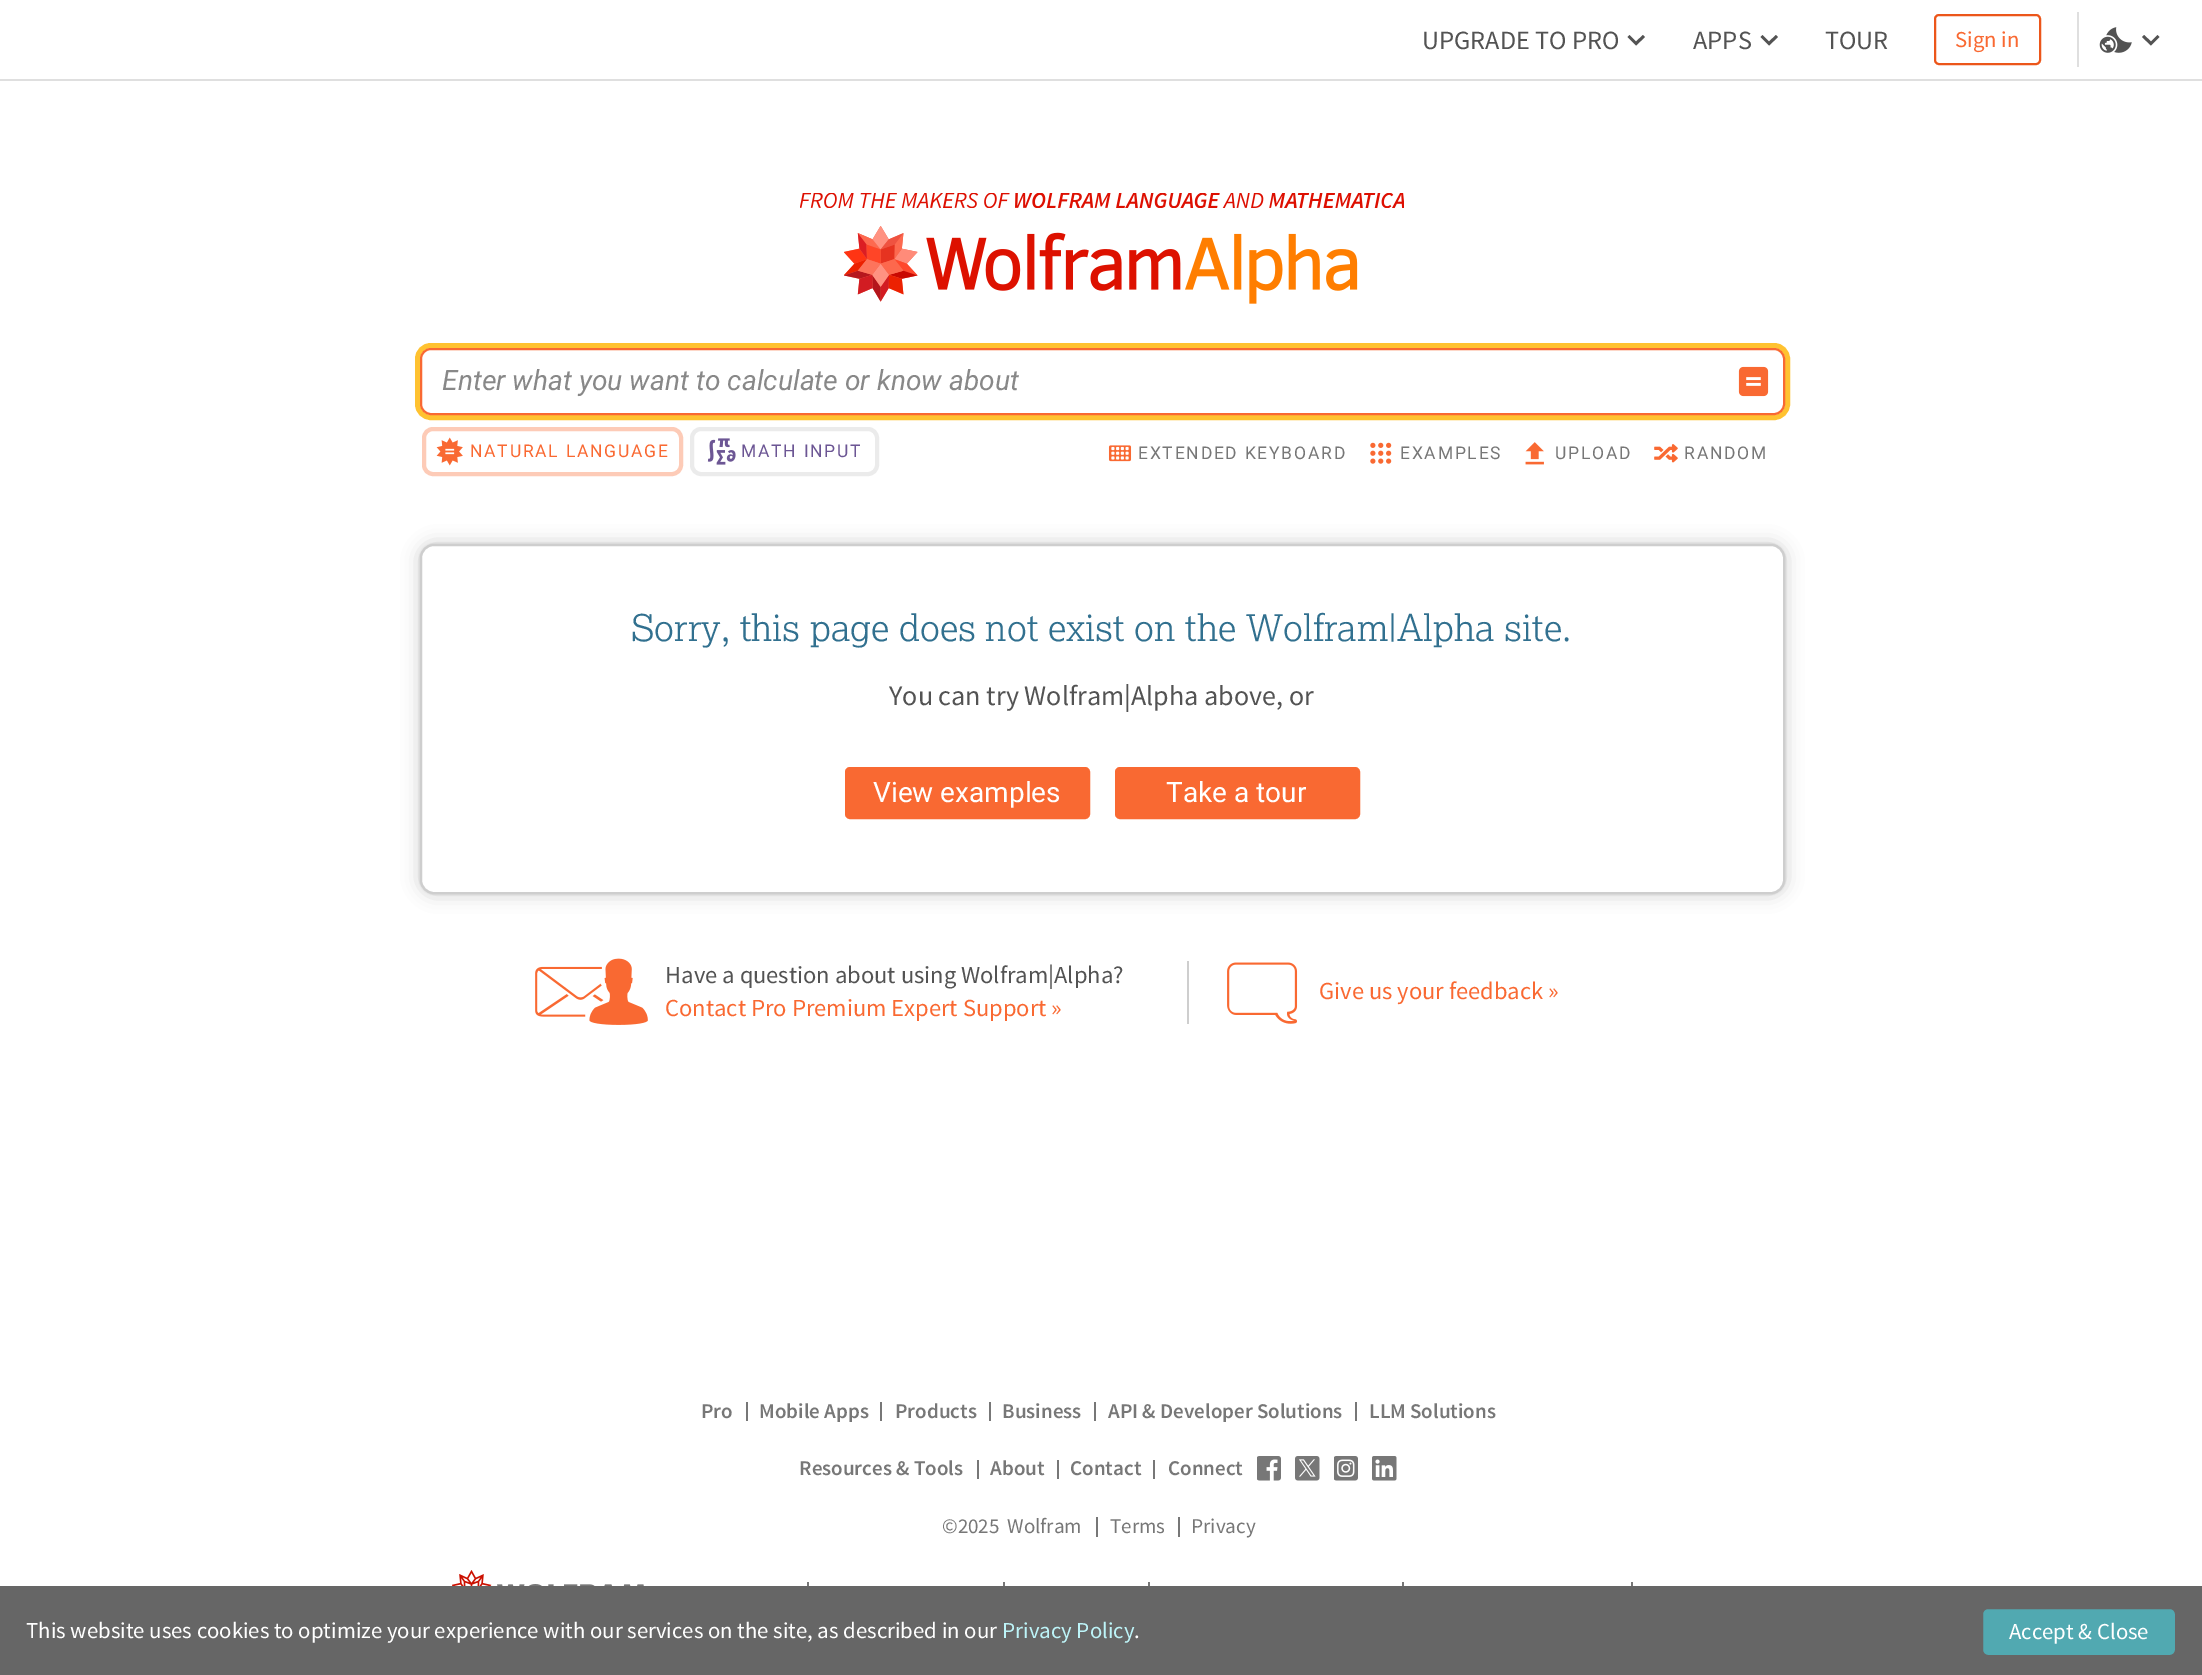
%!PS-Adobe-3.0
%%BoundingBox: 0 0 2202 1675
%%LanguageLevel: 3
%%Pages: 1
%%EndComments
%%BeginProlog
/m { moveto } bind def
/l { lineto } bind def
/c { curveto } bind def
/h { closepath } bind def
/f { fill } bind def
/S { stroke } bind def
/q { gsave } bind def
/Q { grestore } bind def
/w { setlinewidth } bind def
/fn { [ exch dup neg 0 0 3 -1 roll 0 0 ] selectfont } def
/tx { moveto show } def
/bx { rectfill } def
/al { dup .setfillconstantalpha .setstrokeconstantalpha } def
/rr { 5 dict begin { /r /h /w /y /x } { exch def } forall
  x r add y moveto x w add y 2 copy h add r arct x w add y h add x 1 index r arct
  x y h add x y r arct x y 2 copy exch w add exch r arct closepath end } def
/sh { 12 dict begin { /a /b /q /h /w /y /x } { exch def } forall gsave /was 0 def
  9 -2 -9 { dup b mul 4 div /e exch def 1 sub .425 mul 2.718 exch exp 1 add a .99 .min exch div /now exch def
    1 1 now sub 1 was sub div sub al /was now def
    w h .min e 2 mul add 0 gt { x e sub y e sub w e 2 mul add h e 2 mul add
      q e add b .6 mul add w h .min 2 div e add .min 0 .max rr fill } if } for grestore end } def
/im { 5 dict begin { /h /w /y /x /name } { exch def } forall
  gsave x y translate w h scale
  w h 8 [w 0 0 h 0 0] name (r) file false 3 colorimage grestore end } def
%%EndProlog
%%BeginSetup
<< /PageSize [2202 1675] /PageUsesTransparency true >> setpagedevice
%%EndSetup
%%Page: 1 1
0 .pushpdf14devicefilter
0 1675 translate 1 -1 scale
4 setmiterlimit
1 setgray
0 0 2202 1675 bx
0.875 setgray
0 79 2202 2 bx
/SourceSansPro-Regular 26.25 fn
0.325 setgray
(UPGRADE TO PRO) 1422 49 tx
1643 35 m 1636 41.5 l 1629.5 35 l 1627.5 37 l 1636 45.5 l 1645 37 l h f
(APPS) 1693 49 tx
1776 35 m 1769 41.5 l 1762.5 35 l 1760.5 37 l 1769 45.5 l 1778 37 l h f
(TOUR) 1825 49 tx
0.925 0.337 0.102 setrgbcolor
2 w
1935 15 105 49 4 rr S
/SourceSansPro-Regular 22.75 fn
0.976 0.412 0.196 setrgbcolor
(Sign in) 1955 47 tx
0.875 setgray
2077 12 2 55 bx
(image0.raw) 2099 27 33 26 im
0.325 setgray
2157.5 35 m 2151 41.5 l 2144 35 l 2142 37 l 2151 45.5 l 2159.5 37 l h f
(image1.raw) 800 193 604 15 im
(image2.raw) 844 226 514 78 im
1 0.761 0.188 setrgbcolor
5 w
417.5 345.5 1370 72 13.5 rr S
1 setgray
421 349 1363 65 10 rr q f Q
0.976 0.412 0.196 setrgbcolor
2 w
S
/Roboto-Italic 28 fn
0.533 setgray
(Enter what you want to calculate or know about) 442 390 tx
(image3.raw) 1738 366 31 31 im
0.992 0.796 0.718 setrgbcolor
4 w
424 429 257 45 9 rr S
(image4.raw) 436 437 27 29 im
/Roboto-Regular 17.5 fn
0.976 0.412 0.196 setrgbcolor
470 457 m 1.75 0 (NATURAL LANGUAGE) ashow
0.922 setgray
692 429 185 45 9 rr S
(image5.raw) 707 438 29 27 im
0.424 0.337 0.58 setrgbcolor
741 457 m 1.75 0 (MATH INPUT) ashow
(image6.raw) 1108 445 24 17 im
0.467 setgray
1138 459 m 1.75 0 (EXTENDED KEYBOARD) ashow
(image7.raw) 1370 442 22 22 im
1400 459 m 1.75 0 (EXAMPLES) ashow
(image8.raw) 1525 442 19 23 im
1555 459 m 1.75 0 (UPLOAD) ashow
(image9.raw) 1654 444 24 19 im
1684 459 m 1.75 0 (RANDOM) ashow
q
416 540 m 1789 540 l 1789 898 l 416 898 l h 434 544 m 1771 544 l 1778.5 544 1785 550.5 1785 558 c 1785 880 l 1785 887.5 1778.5 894 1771 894 c 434 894 l 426.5 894 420 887.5 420 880 c 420 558 l 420 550.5 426.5 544 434 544 c h eoclip newpath
0.78 setgray
420 544 1365 350 14 1 1 sh
Q
q
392 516 m 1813 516 l 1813 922 l 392 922 l h 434 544 m 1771 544 l 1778.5 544 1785 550.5 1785 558 c 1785 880 l 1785 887.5 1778.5 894 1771 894 c 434 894 l 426.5 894 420 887.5 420 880 c 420 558 l 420 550.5 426.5 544 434 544 c h eoclip newpath
0.78 setgray
420 544 1365 350 14 9 1 sh
Q
0.808 setgray
2 w
421 545 1363 348 13 rr S
/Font-Light 36.75 fn
0.192 0.439 0.561 setrgbcolor
(Sorry, this page does not exist on the Wolfram|Alpha site.) 631 641 tx
/SourceSansPro-Regular 28 fn
0.325 setgray
(You can try Wolfram|Alpha above, or) 889 705 tx
0.976 0.412 0.196 setrgbcolor
846 768 243 50 4 rr q f Q
S
/Roboto-Regular 28 fn
1 setgray
(View examples) 873 802 tx
0.976 0.412 0.196 setrgbcolor
1116 768 243 50 4 rr q f Q
S
1 setgray
(Take a tour) 1166 802 tx
(image10.raw) 535 958 113 67 im
/SourceSansPro-Regular 24.5 fn
0.325 setgray
(Have a question about using Wolfram|Alpha?) 665 983 tx
0.976 0.412 0.196 setrgbcolor
(Contact Pro Premium Expert Support ») 665 1016 tx
0.808 setgray
1187 961 2 63 bx
(image11.raw) 1227 962 71 62 im
0.976 0.412 0.196 setrgbcolor
(Give us your feedback ») 1319 999 tx
/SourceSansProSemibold-SemiBold 21 fn
0.467 setgray
(Pro) 701 1418 tx
746 1402 2 19 bx
(Mobile Apps) 759 1418 tx
880 1402 2 19 bx
(Products) 895 1418 tx
989 1402 2 19 bx
(Business) 1002 1418 tx
1094 1402 2 19 bx
(API & Developer Solutions) 1108 1418 tx
1355 1402 2 19 bx
(LLM Solutions) 1369 1418 tx
(Resources & Tools) 799 1475 tx
977 1460 2 19 bx
(About) 990 1475 tx
1057 1460 2 19 bx
(Contact) 1070 1475 tx
1153 1460 2 19 bx
(Connect) 1168 1475 tx
(image12.raw) 1257 1456 24 25 im
(image13.raw) 1295 1456 25 25 im
(image14.raw) 1334 1456 24 25 im
(image15.raw) 1372 1456 25 25 im
/SourceSansPro-Regular 21 fn
(©2025) 942 1533 tx
(Wolfram) 1007 1533 tx
1096 1517 2 20 bx
(Terms) 1110 1533 tx
1178 1517 2 20 bx
(Privacy) 1191 1533 tx
(image16.raw) 452 1570 192 16 im
807 1582 2 4 bx
1003 1582 2 4 bx
1148 1582 2 4 bx
1402 1582 2 4 bx
1631 1582 2 4 bx
0.4 setgray
0 1586 2202 89 bx
/SourceSansPro-Regular 22.75 fn
1 setgray
(This website uses cookies to optimize your experience with our services on the site, as described in our) 26 1638 tx
0.741 0.957 0.973 setrgbcolor
(Privacy Policy) 1002 1638 tx
1 setgray
(.) 1134 1638 tx
0.318 0.663 0.694 setrgbcolor
1982 1608 194 48 6 rr q f Q
0.4 setgray
S
1 setgray
(Accept & Close) 2009 1639 tx
.poppdf14devicefilter showpage
%%EOF
